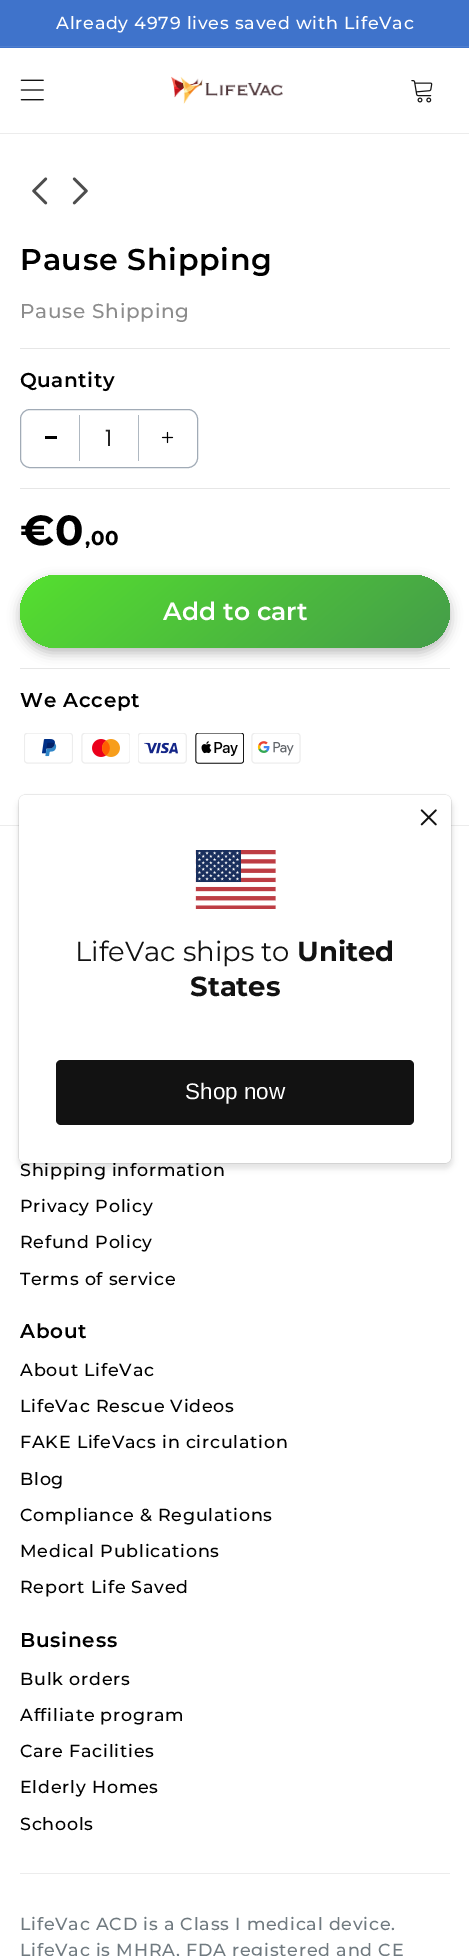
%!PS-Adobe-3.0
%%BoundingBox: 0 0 469 1956
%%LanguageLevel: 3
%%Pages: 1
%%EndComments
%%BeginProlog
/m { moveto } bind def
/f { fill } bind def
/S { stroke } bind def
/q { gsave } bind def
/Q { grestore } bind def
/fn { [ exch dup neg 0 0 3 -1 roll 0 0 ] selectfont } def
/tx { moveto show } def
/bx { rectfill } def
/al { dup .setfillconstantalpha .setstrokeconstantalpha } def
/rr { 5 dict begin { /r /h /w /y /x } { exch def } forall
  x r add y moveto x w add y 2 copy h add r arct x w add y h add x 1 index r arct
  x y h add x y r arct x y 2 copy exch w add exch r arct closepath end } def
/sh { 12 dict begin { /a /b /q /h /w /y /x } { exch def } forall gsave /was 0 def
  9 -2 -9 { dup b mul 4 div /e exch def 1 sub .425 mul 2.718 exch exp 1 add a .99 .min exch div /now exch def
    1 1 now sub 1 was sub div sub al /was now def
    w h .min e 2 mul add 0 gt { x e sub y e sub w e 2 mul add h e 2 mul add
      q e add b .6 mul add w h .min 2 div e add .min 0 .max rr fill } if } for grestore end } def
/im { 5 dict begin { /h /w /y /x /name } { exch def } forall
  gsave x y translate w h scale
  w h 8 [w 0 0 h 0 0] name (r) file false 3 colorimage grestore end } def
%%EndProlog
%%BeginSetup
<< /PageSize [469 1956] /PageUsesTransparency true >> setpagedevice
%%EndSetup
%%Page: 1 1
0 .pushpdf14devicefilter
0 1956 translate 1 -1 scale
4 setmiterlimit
1 setgray
0 0 469 1956 bx
0.247 0.451 0.796 setrgbcolor
0 0 469 48 bx
0.306 0.494 0.812 setrgbcolor
0 46 469 1 bx
/Montserrat-Medium 17.5 fn
1 setgray
56 29 m 0.75 0 (Already 4979 lives saved with LifeVac) ashow
0.925 setgray
0 133 469 1 bx
(image0.raw) 20 79 24 22 im
(image1.raw) 171 76 112 28 im
(image2.raw) 411 80 22 23 im
(image3.raw) 32 177 16 28 im
(image4.raw) 72 177 16 28 im
/Montserrat-SemiBold 30 fn
0 setgray
20 270 m 0.75 0 (Pause Shipping) ashow
0.902 setgray
20 348 430 1 bx
/Montserrat-Medium 20 fn
0.549 setgray
20 318 m 0.75 0 (Pause Shipping) ashow
0.902 setgray
20 488 430 1 bx
/Montserrat-SemiBold 20 fn
0 setgray
20 387 m 0.5 0 (Quantity) ashow
0.631 0.671 0.714 setrgbcolor
20.5 409.5 177 58 9.5 rr S
0 setgray
45 436 12 3 bx
0.686 0.722 0.757 setrgbcolor
138 415 1 46 bx
79 415 1 46 bx
/Poppins-Regular 22.5 fn
0.149 setgray
(1) 105 446 tx
(image5.raw) 161 431 13 13 im
0.902 setgray
20 668 430 1 bx
/Montserrat-Bold 42 fn
0 setgray
20 545 m 0.75 0 (€0) ashow
/Montserrat-Bold 20 fn
85 545 m 0.75 0 (,00) ashow
20 580 430 73 36.5 6 0.26 sh
q 20 575 430 73 36.5 rr clip newpath
<< /ShadingType 2 /ColorSpace /DeviceRGB /Coords [129 484 341 738] /Extend [true true] /Function << /FunctionType 3 /Domain [0 1] /Functions [<< /FunctionType 2 /Domain [0 1] /C0 [0.329 0.867 0.188] /C1 [0.329 0.867 0.188] /N 1 >> << /FunctionType 2 /Domain [0 1] /C0 [0.329 0.867 0.188] /C1 [0.271 0.624 0.286] /N 1 >> << /FunctionType 2 /Domain [0 1] /C0 [0.271 0.624 0.286] /C1 [0.271 0.624 0.286] /N 1 >>] /Bounds [0.04 0.97] /Encode [0 1 0 1 0 1] >> >> shfill Q
/Montserrat-SemiBold 25 fn
1 setgray
(Add to cart) 163 620 tx
/Montserrat-SemiBold 20 fn
0 setgray
20 707 m 0.75 0 (We Accept) ashow
(image6.raw) 24 733 49 31 im
(image7.raw) 81 733 49 31 im
(image8.raw) 138 733 49 31 im
(image9.raw) 195 733 49 31 im
(image10.raw) 251 733 50 31 im
0.925 setgray
0 825 469 1 bx
0 setgray
18 799 435 370 8 2.5 0.1 sh
19 795 432 368 6 0.5 0.3 sh
/Montserrat-Medium 17.5 fn
20 1176 m 0.75 0 (Shipping information) ashow
1 setgray
19 795 432 368 6 rr f
(image11.raw) 420 809 17 17 im
(image12.raw) 195 850 81 59 im
/Montserrat-Regular 27.5 fn
0.071 setgray
(LifeVac ships to) 75 961 tx
/Montserrat-Bold 27.5 fn
(United) 297 961 tx
(States) 190 996 tx
56 1060 358 65 5 rr f
/LiberationSans-Regular 22.5 fn
1 setgray
(Shop now) 185 1099 tx
/Montserrat-Medium 17.5 fn
0 setgray
20 1212 m 0.75 0 (Privacy Policy) ashow
20 1248 m 0.75 0 (Refund Policy) ashow
20 1285 m 0.75 0 (Terms of service) ashow
/Montserrat-SemiBold 20 fn
20 1338 m 0.75 0 (About) ashow
/Montserrat-Medium 17.5 fn
20 1376 m 0.75 0 (About LifeVac) ashow
20 1412 m 0.75 0 (LifeVac Rescue Videos) ashow
20 1448 m 0.75 0 (FAKE LifeVacs in circulation) ashow
20 1485 m 0.75 0 (Blog) ashow
20 1521 m 0.75 0 (Compliance & Regulations) ashow
20 1557 m 0.75 0 (Medical Publications) ashow
20 1593 m 0.75 0 (Report Life Saved) ashow
/Montserrat-SemiBold 20 fn
20 1647 m 0.75 0 (Business) ashow
/Montserrat-Medium 17.5 fn
20 1685 m 0.75 0 (Bulk orders) ashow
20 1721 m 0.75 0 (Affiliate program) ashow
20 1757 m 0.75 0 (Care Facilities) ashow
20 1793 m 0.75 0 (Elderly Homes) ashow
20 1830 m 0.75 0 (Schools) ashow
0.925 setgray
20 1873 430 1 bx
0.439 0.478 0.502 setrgbcolor
20 1930 m 0.75 0 (LifeVac ACD is a Class I medical device.) ashow
20 1956 m 0.75 0 (LifeVac is MHRA, FDA registered and CE) ashow
.poppdf14devicefilter showpage
%%EOF
